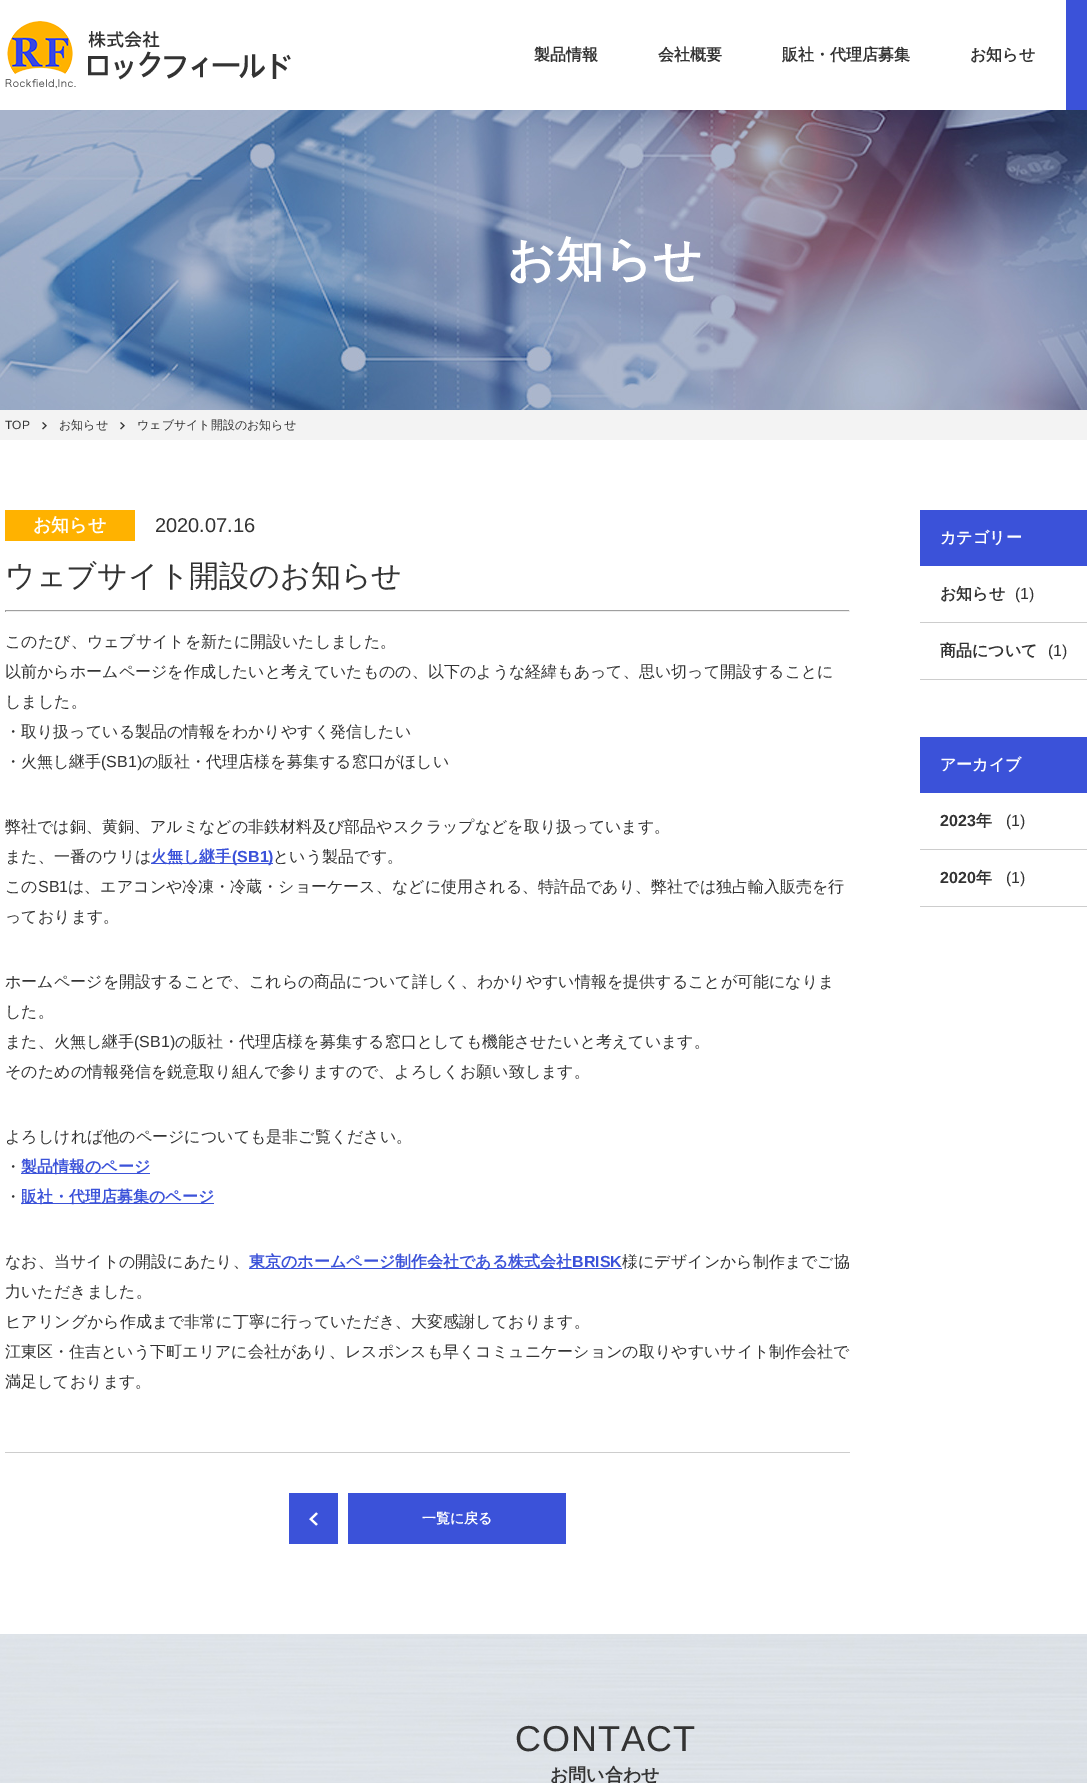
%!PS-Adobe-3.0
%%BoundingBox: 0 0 1087 1783
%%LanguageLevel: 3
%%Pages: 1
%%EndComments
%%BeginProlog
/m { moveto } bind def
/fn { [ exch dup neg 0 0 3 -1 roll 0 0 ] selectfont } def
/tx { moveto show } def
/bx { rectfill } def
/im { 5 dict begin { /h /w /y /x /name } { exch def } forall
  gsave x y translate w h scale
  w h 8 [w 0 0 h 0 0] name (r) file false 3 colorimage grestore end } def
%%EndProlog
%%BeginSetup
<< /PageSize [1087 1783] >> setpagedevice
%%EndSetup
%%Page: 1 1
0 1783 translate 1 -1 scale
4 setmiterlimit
1 setgray
0 0 1087 1783 bx
(image0.raw) 5 21 286 68 im
/WenQuanYiZenHei-Bold 16 fn
0.2 setgray
(製品情報) 534 60 tx
(会社概要) 658 60 tx
(販社・代理店募集) 782 60 tx
(お知らせ) 970 60 tx
0.231 0.322 0.851 setrgbcolor
1066 0 21 110 bx
(image1.raw) 0 110 1087 300 im
/WenQuanYiZenHei-Bold 48 fn
1 setgray
(お知らせ) 507 276 tx
0.953 setgray
0 410 1087 30 bx
/LiberationSans-Regular 12 fn
0.2 setgray
(TOP) 5 429 tx
(image2.raw) 42 422 5 8 im
/WenQuanYiZenHei-Medium 12 fn
(お知らせ) 59 429 tx
(image2.raw) 120 422 5 8 im
(ウェブサイト開設のお知らせ) 137 429 tx
0.804 setgray
5 1452 845 1 bx
1 0.698 0 setrgbcolor
5 510 130 31 bx
/WenQuanYiZenHei-Bold 18 fn
1 setgray
(お知らせ) 33 531 tx
/LiberationSans-Regular 20 fn
0.2 setgray
(2020.07.16) 155 532 tx
/WenQuanYiZenHei-Medium 30 fn
(ウェブサイト開設のお知らせ) 5 586 tx
0.624 setgray
5 610 845 1 bx
0.933 setgray
849 610 1 2 bx
5 611 845 1 bx
0.624 setgray
5 610 1 2 bx
/WenQuanYiZenHei-Medium 16 fn
0.2 setgray
(このたび、ウェブサイトを新たに開設いたしました。) 5 647 tx
(以前からホームページを作成したいと考えていたものの、以下のような経緯もあって、思い切って開設することに) 5 677 tx
(しました。) 5 707 tx
(・取り扱っている製品の情報をわかりやすく発信したい) 5 737 tx
(・火無し継手) 5 767 tx
/LiberationSans-Regular 16 fn
(\(SB1\)) 101 767 tx
/WenQuanYiZenHei-Medium 16 fn
(の販社・代理店様を募集する窓口がほしい) 142 767 tx
(弊社では銅、黄銅、アルミなどの非鉄材料及び部品やスクラップなどを取り扱っています。) 5 832 tx
(また、一番のウリは) 5 862 tx
0.231 0.322 0.851 setrgbcolor
151 863 122 1 bx
/WenQuanYiZenHei-Bold 16 fn
(火無し継手) 151 862 tx
/LiberationSans-Bold 16 fn
(\(SB1\)) 232 862 tx
/WenQuanYiZenHei-Medium 16 fn
0.2 setgray
(という製品です。) 273 862 tx
(この) 5 892 tx
/LiberationSans-Regular 16 fn
(SB1) 38 892 tx
/WenQuanYiZenHei-Medium 16 fn
(は、エアコンや冷凍・冷蔵・ショーケース、などに使用される、特許品であり、弊社では独占輸入販売を行) 68 892 tx
(っております。) 5 922 tx
(ホームページを開設することで、これらの商品について詳しく、わかりやすい情報を提供することが可能になりま) 5 987 tx
(した。) 5 1017 tx
(また、火無し継手) 5 1047 tx
/LiberationSans-Regular 16 fn
(\(SB1\)) 134 1047 tx
/WenQuanYiZenHei-Medium 16 fn
(の販社・代理店様を募集する窓口としても機能させたいと考えています。) 175 1047 tx
(そのための情報発信を鋭意取り組んで参りますので、よろしくお願い致します。) 5 1077 tx
(よろしければ他のページについても是非ご覧ください。) 5 1142 tx
(・) 5 1172 tx
0.231 0.322 0.851 setrgbcolor
21 1173 129 1 bx
/WenQuanYiZenHei-Bold 16 fn
(製品情報のページ) 21 1172 tx
/WenQuanYiZenHei-Medium 16 fn
0.2 setgray
(・) 5 1202 tx
0.231 0.322 0.851 setrgbcolor
21 1203 193 1 bx
/WenQuanYiZenHei-Bold 16 fn
(販社・代理店募集のページ) 21 1202 tx
/WenQuanYiZenHei-Medium 16 fn
0.2 setgray
(なお、当サイトの開設にあたり、) 5 1267 tx
0.231 0.322 0.851 setrgbcolor
249 1268 373 1 bx
/WenQuanYiZenHei-Bold 16 fn
(東京のホームページ制作会社である株式会社) 249 1267 tx
/LiberationSans-Bold 16 fn
(BRISK) 572 1267 tx
/WenQuanYiZenHei-Medium 16 fn
0.2 setgray
(様にデザインから制作までご協) 622 1267 tx
(力いただきました。) 5 1297 tx
(ヒアリングから作成まで非常に丁寧に行っていただき、大変感謝しております。) 5 1327 tx
(江東区・住吉という下町エリアに会社があり、レスポンスも早くコミュニケーションの取りやすいサイト制作会社で) 5 1357 tx
(満足しております。) 5 1387 tx
0.231 0.322 0.851 setrgbcolor
289 1493 49 51 bx
(image3.raw) 309 1512 9 14 im
348 1493 218 51 bx
/WenQuanYiZenHei-Bold 14 fn
1 setgray
(一覧に戻る) 422 1523 tx
0.231 0.322 0.851 setrgbcolor
920 510 167 56 bx
/WenQuanYiZenHei-Bold 16 fn
1 setgray
(カテゴリー) 940 543 tx
0.804 setgray
920 622 167 1 bx
0.2 setgray
(お知らせ) 940 599 tx
/LiberationSans-Regular 16 fn
(\(1\)) 1015 599 tx
0.804 setgray
920 679 167 1 bx
/WenQuanYiZenHei-Bold 16 fn
0.2 setgray
(商品について) 940 656 tx
/LiberationSans-Regular 16 fn
(\(1\)) 1048 656 tx
0.231 0.322 0.851 setrgbcolor
920 737 167 56 bx
/WenQuanYiZenHei-Bold 16 fn
1 setgray
(アーカイブ) 940 770 tx
0.804 setgray
920 849 167 1 bx
/LiberationSans-Bold 16 fn
0.2 setgray
(2023) 940 826 tx
/WenQuanYiZenHei-Bold 16 fn
(年) 976 826 tx
/LiberationSans-Regular 16 fn
(\(1\)) 1006 826 tx
0.804 setgray
920 906 167 1 bx
/LiberationSans-Bold 16 fn
0.2 setgray
(2020) 940 883 tx
/WenQuanYiZenHei-Bold 16 fn
(年) 976 883 tx
/LiberationSans-Regular 16 fn
(\(1\)) 1006 883 tx
(image4.raw) 0 1634 1087 149 im
/LiberationSans-Regular 36 fn
515 1751 m 1 0 (CONTACT) ashow
/WenQuanYiZenHei-Bold 18 fn
(お問い合わせ) 550 1781 tx
showpage
%%EOF
